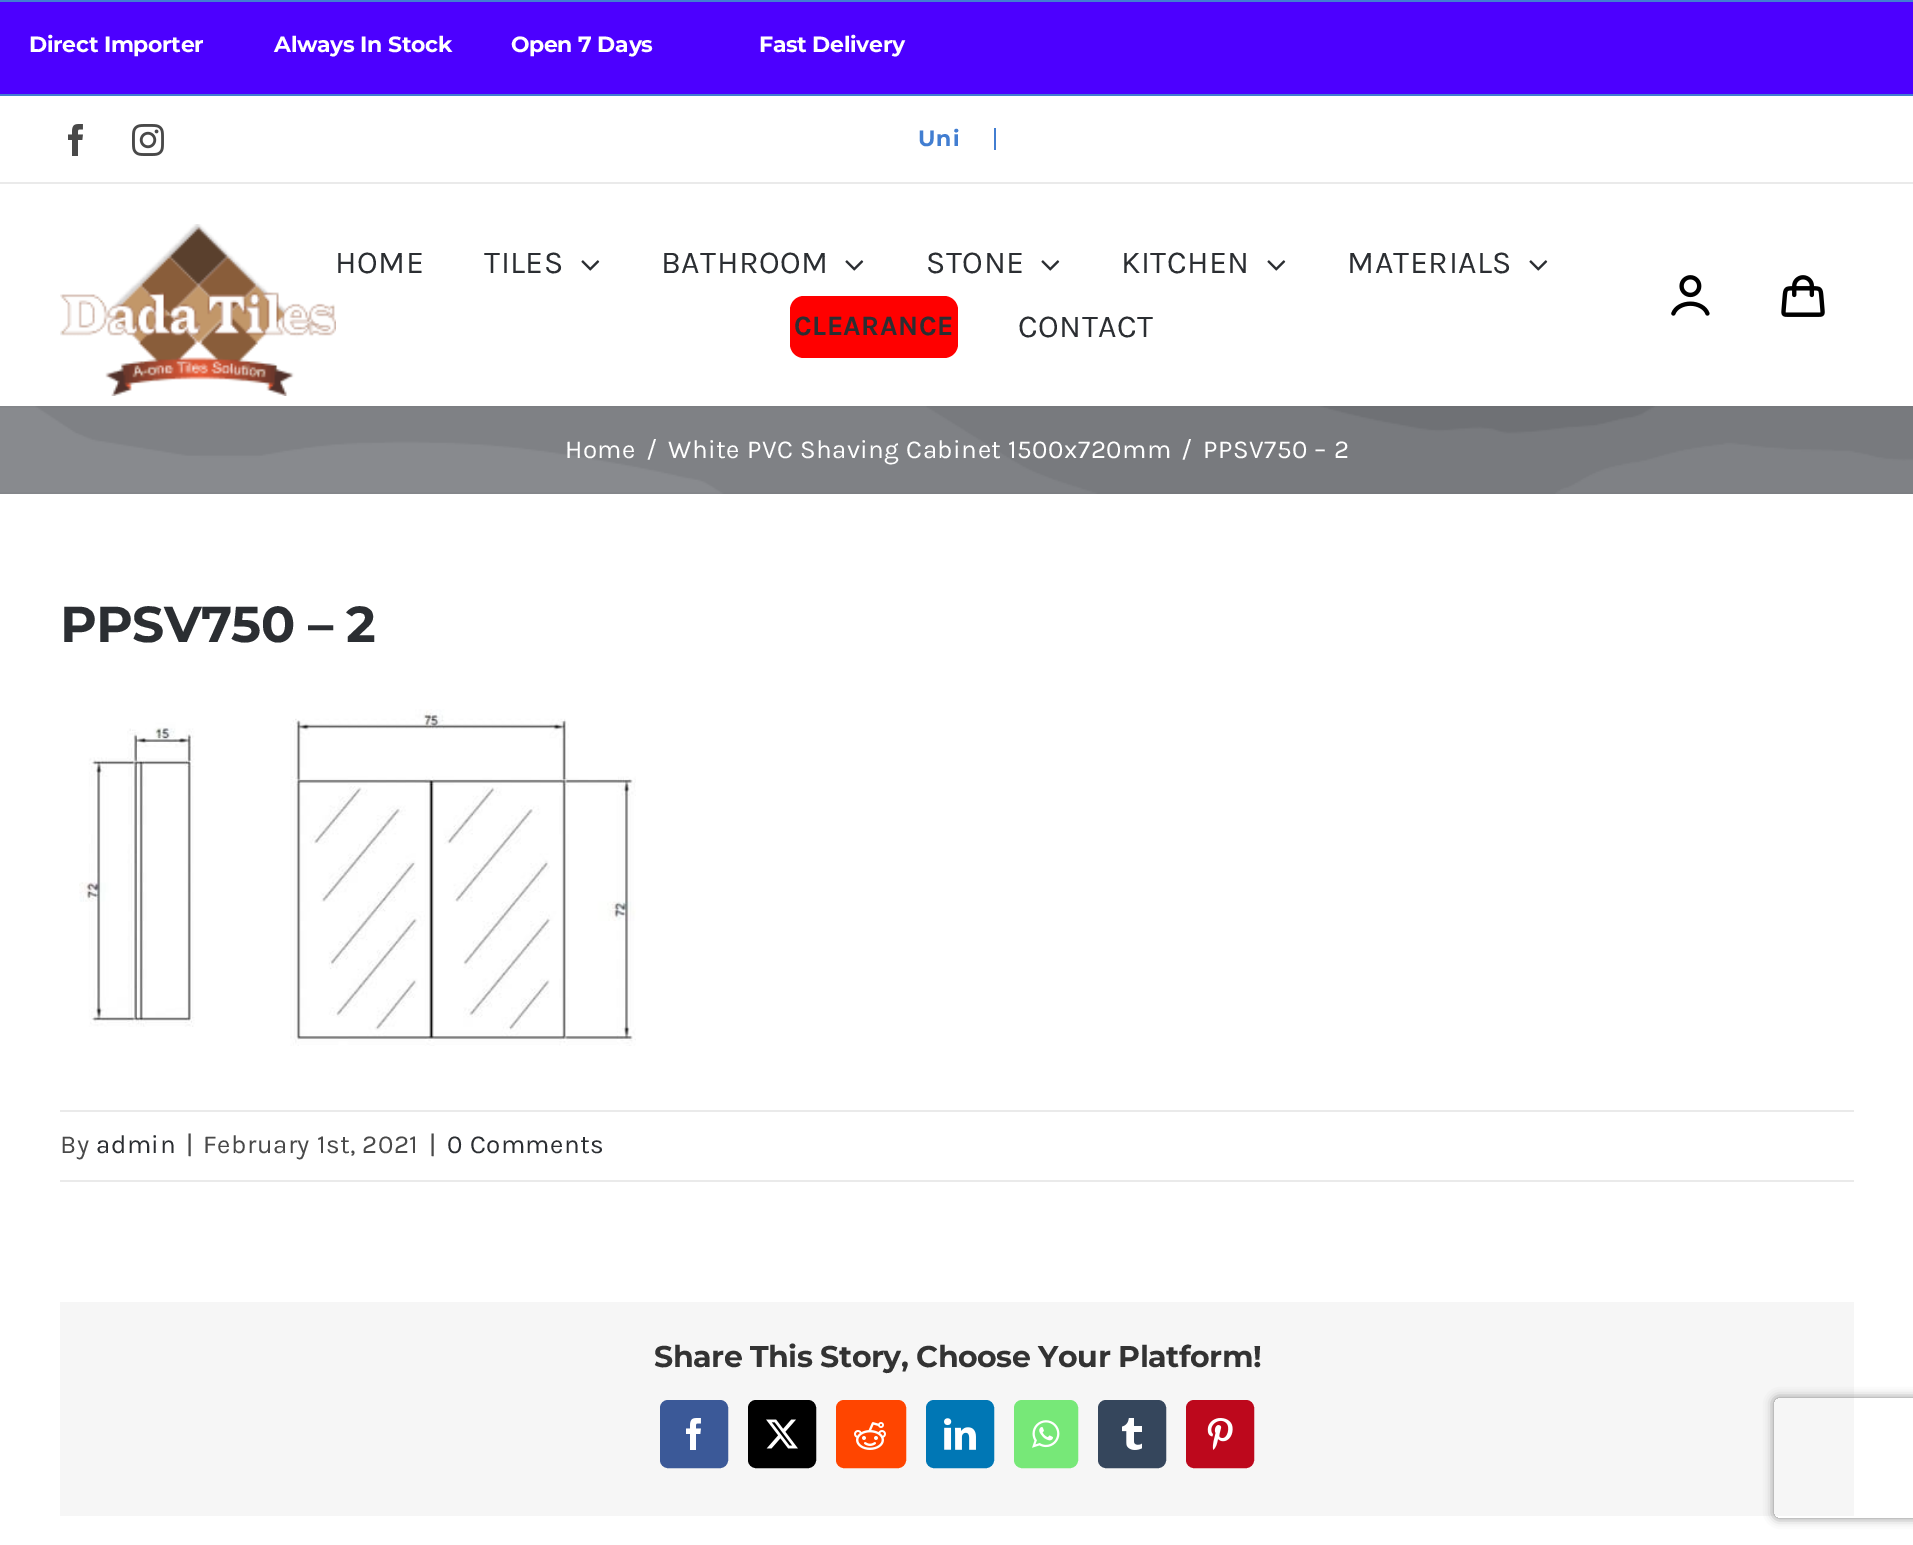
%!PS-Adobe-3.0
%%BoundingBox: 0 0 1913 1545
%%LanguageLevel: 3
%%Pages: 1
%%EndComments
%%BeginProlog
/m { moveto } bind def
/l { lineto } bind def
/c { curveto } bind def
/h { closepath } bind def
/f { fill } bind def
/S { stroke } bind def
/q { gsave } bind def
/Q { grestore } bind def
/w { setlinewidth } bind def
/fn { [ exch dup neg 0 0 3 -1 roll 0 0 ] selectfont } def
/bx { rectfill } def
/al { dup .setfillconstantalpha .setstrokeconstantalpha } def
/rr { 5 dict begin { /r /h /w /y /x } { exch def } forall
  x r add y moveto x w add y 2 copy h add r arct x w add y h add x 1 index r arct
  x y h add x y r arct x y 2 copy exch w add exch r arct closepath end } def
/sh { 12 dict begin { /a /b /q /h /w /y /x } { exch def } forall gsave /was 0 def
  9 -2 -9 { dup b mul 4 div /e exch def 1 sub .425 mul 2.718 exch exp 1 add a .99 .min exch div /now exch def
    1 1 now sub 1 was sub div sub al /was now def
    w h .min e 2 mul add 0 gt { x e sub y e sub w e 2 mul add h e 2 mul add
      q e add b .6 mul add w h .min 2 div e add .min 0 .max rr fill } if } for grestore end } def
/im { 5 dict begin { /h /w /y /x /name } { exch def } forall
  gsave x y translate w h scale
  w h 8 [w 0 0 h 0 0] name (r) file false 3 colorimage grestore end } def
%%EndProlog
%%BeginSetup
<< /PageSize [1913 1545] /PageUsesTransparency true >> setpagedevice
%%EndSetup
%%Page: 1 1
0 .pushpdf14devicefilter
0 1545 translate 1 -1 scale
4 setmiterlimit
1 setgray
0 0 1913 1545 bx
0.298 0 1 setrgbcolor
0 2 1913 92 bx
0.259 0.494 0.82 setrgbcolor
0 0 1913 2 bx
/Montserrat-Thin 22 fn
1 setgray
29 52 m -0.33 0 (Direct Importer            Always In Stock          Open 7 Days                  Fast Delivery) ashow
0.259 0.494 0.82 setrgbcolor
0 94 1913 2 bx
(image0.raw) 68 124 15 32 im
(image1.raw) 132 124 32 32 im
918 146 m 1 0 (Uni) ashow
994 128 2 22 bx
0.918 setgray
0 182 1913 2 bx
(image2.raw) 60 224 276 172 im
/Karla-Regular 32 fn
0.169 0.18 0.196 setrgbcolor
335 273 m 0.5 0 (HOME) ashow
484 273 m 0.5 0 (TILES) ashow
(image3.raw) 581 260 19 11 im
661 273 m 0.5 0 (BATHROOM) ashow
(image3.raw) 845 260 19 11 im
926 273 m 0.5 0 (STONE) ashow
(image3.raw) 1041 260 19 11 im
1121 273 m 0.5 0 (KITCHEN) ashow
(image3.raw) 1267 260 19 11 im
1347 273 m 0.5 0 (MATERIALS) ashow
(image3.raw) 1529 260 19 11 im
1 0 0 setrgbcolor
790 296 168 62 14 rr f
/Karla-Bold 28 fn
0.169 0.18 0.196 setrgbcolor
794 335 m 0.5 0 (CLEARANCE) ashow
/Karla-Regular 32 fn
1018 337 m 0.5 0 (CONTACT) ashow
(image4.raw) 1671 275 39 41 im
(image5.raw) 1781 275 44 42 im
(image6.raw) 0 406 1913 88 im
/Karla-Regular 26 fn
1 setgray
565 458 m 0.45 0 (Home) ashow
646 458 m 0.45 0 (/) ashow
668 458 m 0.45 0 (White PVC Shaving Cabinet 1500x720mm) ashow
1181 458 m 0.45 0 (/) ashow
1203 458 m 0.45 0 (PPSV750 – 2) ashow
/Montserrat-Thin 50.5 fn
0.169 0.18 0.196 setrgbcolor
60 642 m -0.75 0 (PPSV750 – 2) ashow
(image7.raw) 79 709 557 337 im
0.918 setgray
60 1110 1794 2 bx
60 1180 1794 2 bx
/Karla-Regular 26 fn
0.286 setgray
60 1153 m 0.45 0 (By) ashow
0.169 0.18 0.196 setrgbcolor
96 1153 m 0.45 0 (admin) ashow
0.286 setgray
186 1153 m 0.45 0 (|) ashow
203 1153 m 0.45 0 (February 1st, 2021) ashow
429 1153 m 0.45 0 (|) ashow
0.169 0.18 0.196 setrgbcolor
447 1153 m 0.45 0 (0 Comments) ashow
0.965 setgray
60 1302 1794 214 bx
/Montserrat-Thin 30 fn
0.2 setgray
654 1367 m -0.45 0 (Share This Story, Choose Your Platform!) ashow
0.231 0.349 0.596 setrgbcolor
661 1401 66 66 7 rr q f Q
2 w
S
(image8.raw) 686 1418 15 32 im
0 setgray
749 1401 66 66 7 rr q f Q
S
(image9.raw) 766 1419 32 30 im
1 0.271 0 setrgbcolor
837 1401 68 66 7 rr q f Q
S
(image10.raw) 854 1422 32 28 im
0 0.467 0.71 setrgbcolor
927 1401 66 66 7 rr q f Q
S
(image11.raw) 944 1418 32 32 im
0.467 0.91 0.471 setrgbcolor
1015 1401 62 66 7 rr q f Q
S
(image12.raw) 1032 1420 28 28 im
0.208 0.275 0.361 setrgbcolor
1099 1401 66 66 7 rr q f Q
S
(image13.raw) 1122 1418 20 32 im
0.741 0.031 0.11 setrgbcolor
1187 1401 66 66 7 rr q f Q
S
(image14.raw) 1207 1418 26 32 im
q
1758 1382 m 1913 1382 l 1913 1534 l 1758 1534 l h 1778 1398 m 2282 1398 l 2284 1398 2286 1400 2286 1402 c 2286 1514 l 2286 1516 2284 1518 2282 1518 c 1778 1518 l 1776 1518 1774 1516 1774 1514 c 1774 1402 l 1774 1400 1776 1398 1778 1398 c h eoclip newpath
0.502 setgray
1774 1398 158 120 4 5 1 sh
Q
.poppdf14devicefilter showpage
%%EOF
